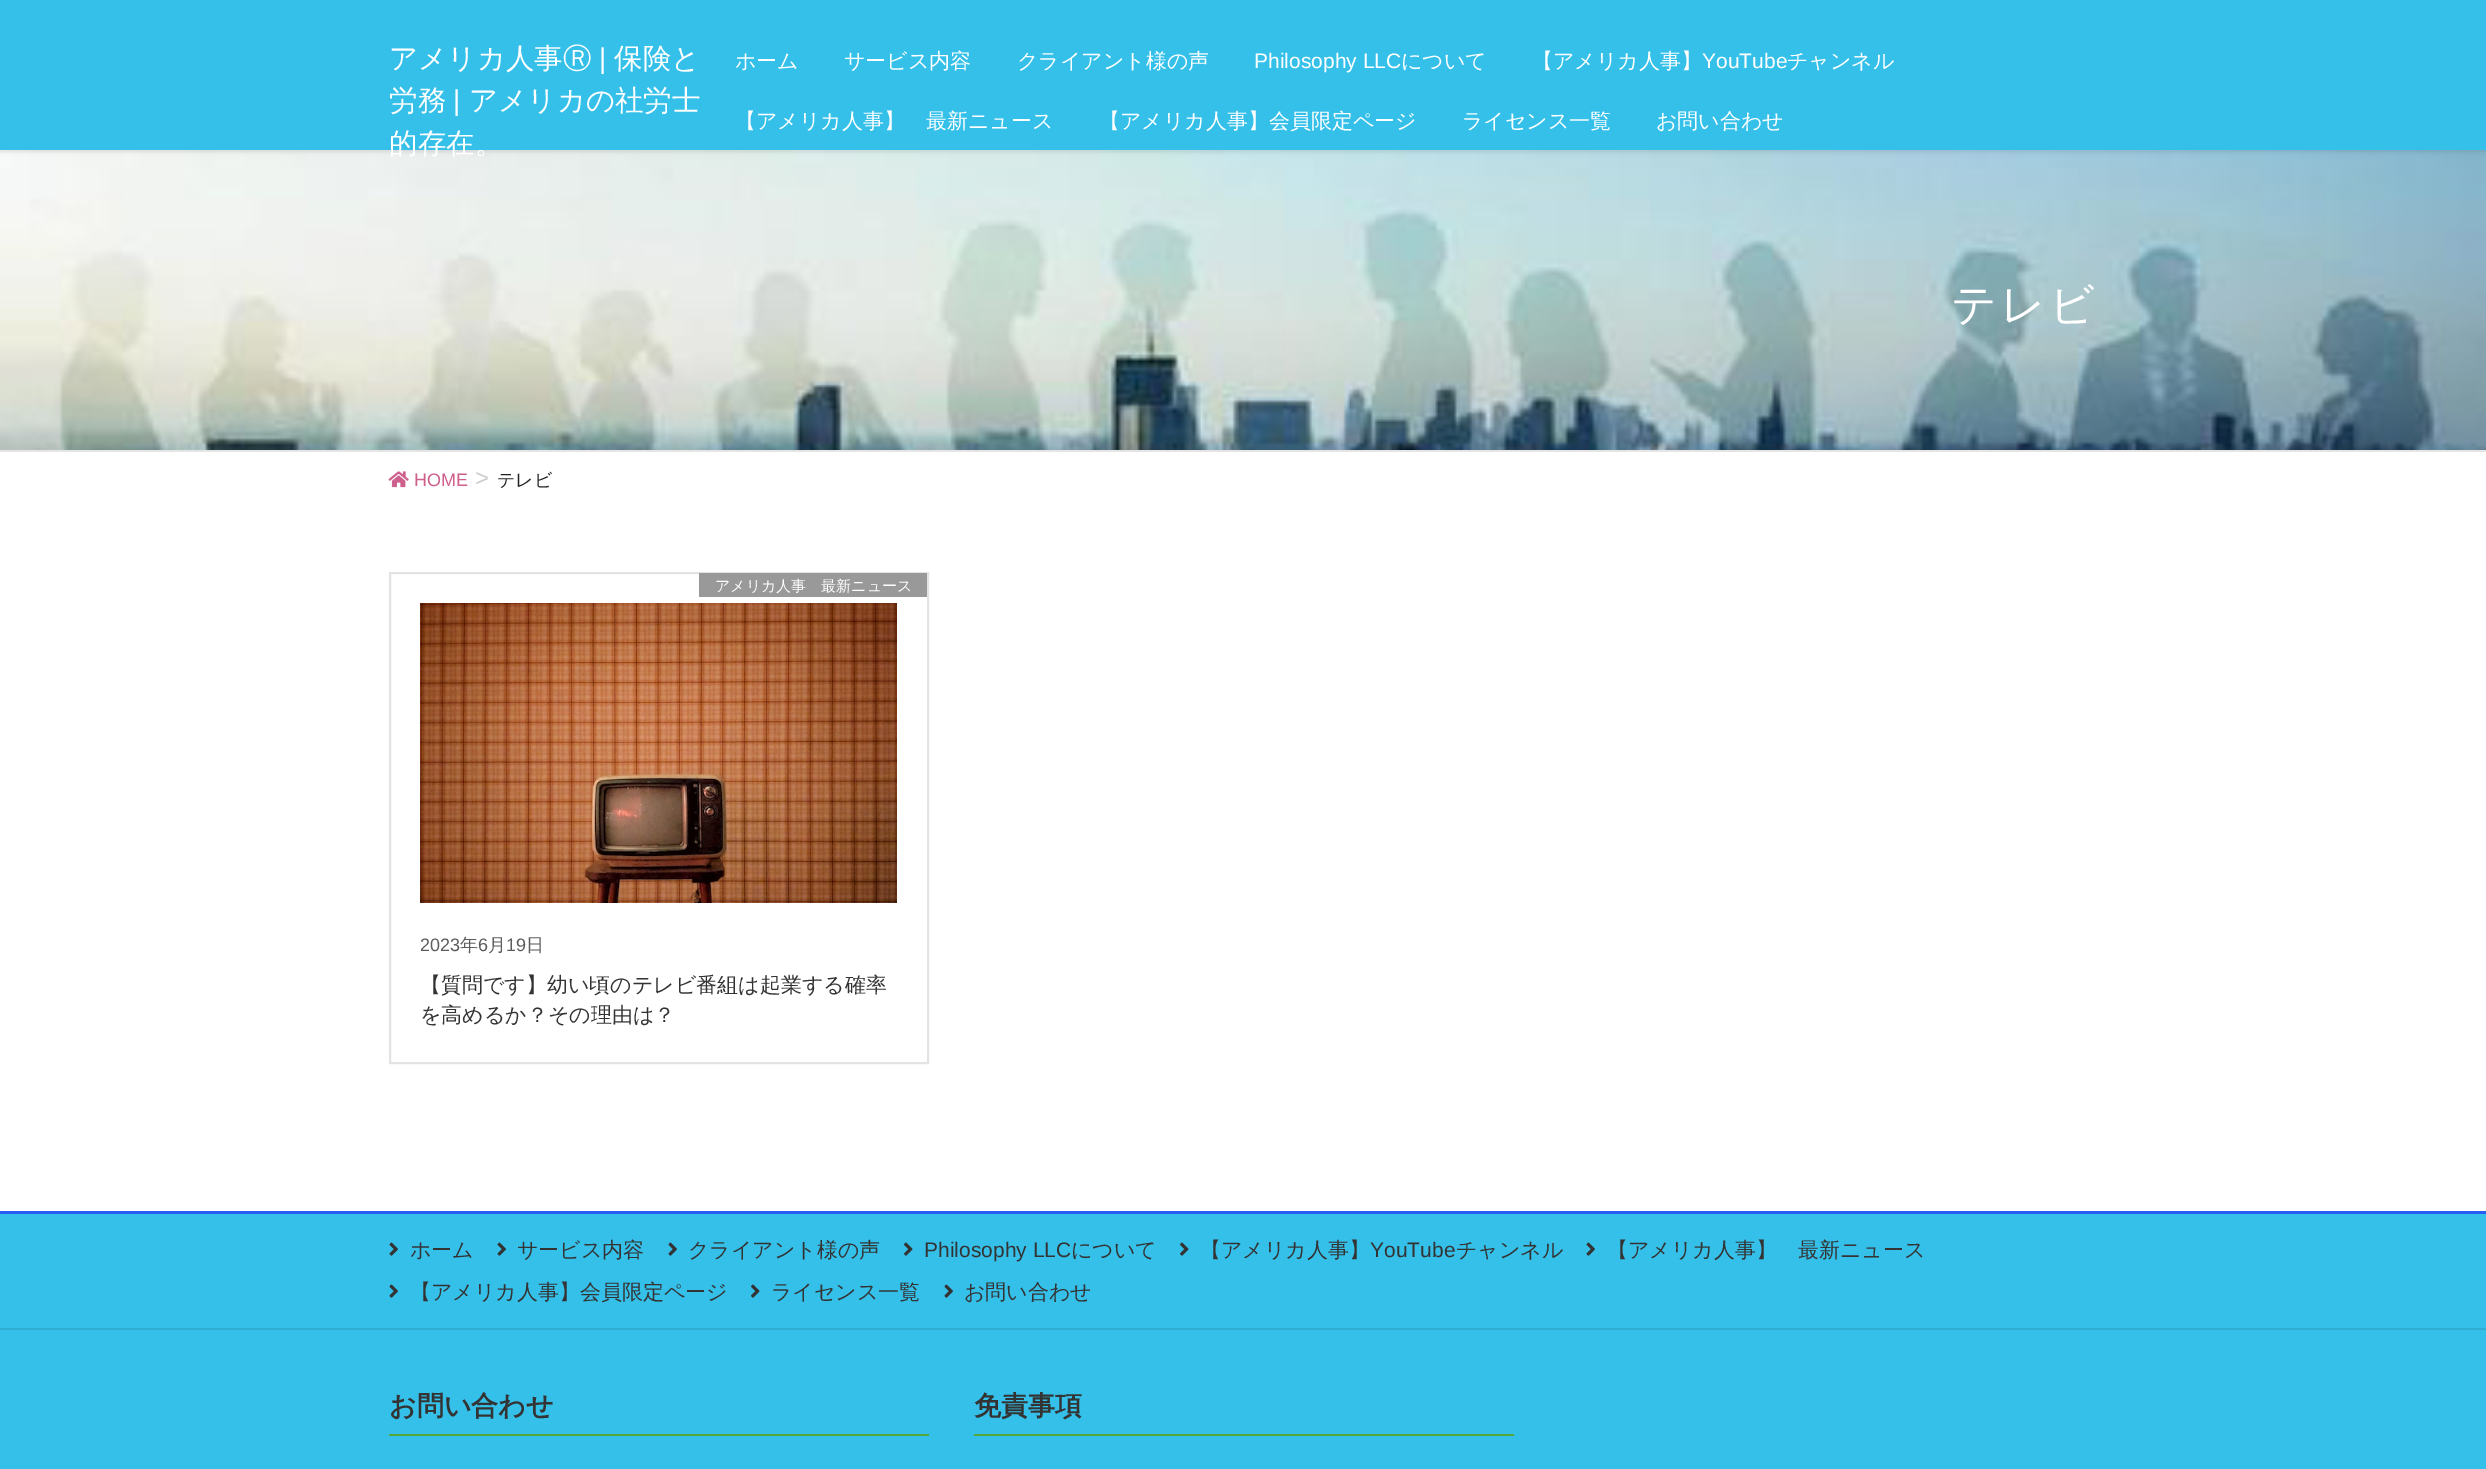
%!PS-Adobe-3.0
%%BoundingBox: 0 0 2486 1469
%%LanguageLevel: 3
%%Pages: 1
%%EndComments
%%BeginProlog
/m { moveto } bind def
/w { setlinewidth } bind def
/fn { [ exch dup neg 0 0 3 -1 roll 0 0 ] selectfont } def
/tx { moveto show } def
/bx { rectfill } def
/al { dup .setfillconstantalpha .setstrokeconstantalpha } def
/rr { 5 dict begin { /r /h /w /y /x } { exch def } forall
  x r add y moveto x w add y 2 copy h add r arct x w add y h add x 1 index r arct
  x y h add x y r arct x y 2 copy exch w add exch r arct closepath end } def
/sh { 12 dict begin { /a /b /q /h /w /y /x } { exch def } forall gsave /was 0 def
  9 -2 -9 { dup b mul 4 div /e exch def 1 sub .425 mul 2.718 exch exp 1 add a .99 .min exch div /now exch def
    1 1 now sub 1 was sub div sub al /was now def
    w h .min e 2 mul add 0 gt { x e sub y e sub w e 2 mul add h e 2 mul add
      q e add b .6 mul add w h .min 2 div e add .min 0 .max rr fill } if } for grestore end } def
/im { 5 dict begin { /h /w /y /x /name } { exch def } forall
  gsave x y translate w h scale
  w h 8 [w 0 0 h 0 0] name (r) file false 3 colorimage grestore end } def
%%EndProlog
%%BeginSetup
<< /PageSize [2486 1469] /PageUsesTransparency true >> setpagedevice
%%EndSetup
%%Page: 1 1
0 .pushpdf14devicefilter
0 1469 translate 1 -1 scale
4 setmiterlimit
1 setgray
0 0 2486 1469 bx
(image0.raw) 0 150 2486 300 im
0 setgray
0 2 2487 150 0 2 0.1 sh
0.208 0.753 0.918 setrgbcolor
0 0 2486 150 bx
/WenQuanYiZenHei-Medium 28.5 fn
1 setgray
(アメリカ人事Ⓡ) 389 68 tx
/LiberationSans-Regular 28.5 fn
(|) 599 68 tx
/WenQuanYiZenHei-Medium 28.5 fn
(保険と) 614 68 tx
(労務) 389 110 tx
/LiberationSans-Regular 28.5 fn
(|) 453 110 tx
/WenQuanYiZenHei-Medium 28.5 fn
(アメリカの社労士) 469 110 tx
(的存在。) 389 153 tx
/WenQuanYiZenHei-Medium 21 fn
(ホーム) 735 68 tx
(サービス内容) 844 68 tx
(クライアント様の声) 1017 68 tx
/LiberationSans-Regular 21 fn
(Philosophy LLC) 1254 68 tx
/WenQuanYiZenHei-Medium 21 fn
(について) 1401 68 tx
(【アメリカ人事】) 1532 68 tx
/LiberationSans-Regular 21 fn
(YouTube) 1702 68 tx
/WenQuanYiZenHei-Medium 21 fn
(チャンネル) 1787 68 tx
(【アメリカ人事】　最新ニュース) 735 128 tx
(【アメリカ人事】会員限定ページ) 1099 128 tx
(ライセンス一覧) 1462 128 tx
(お問い合わせ) 1656 128 tx
/WenQuanYiZenHei-Medium 45 fn
1951 320 m 3 0 (テレビ) ashow
0.898 setgray
0 450 2486 2 bx
(image1.raw) 388 471 21 17 im
/LiberationSans-Regular 18 fn
0.808 0.376 0.553 setrgbcolor
(HOME) 414 486 tx
/LiberationSans-Regular 24 fn
0.8 setgray
(>) 475 486 tx
/WenQuanYiZenHei-Medium 18 fn
0.133 setgray
(テレビ) 497 486 tx
0.89 setgray
2 w
390 573 538 490 rectstroke
0.6 setgray
699 573 228 24 bx
/WenQuanYiZenHei-Medium 15 fn
1 setgray
(アメリカ人事　最新ニュース) 715 591 tx
/LiberationSans-Regular 18 fn
0.361 setgray
(2023) 420 951 tx
/WenQuanYiZenHei-Medium 18 fn
(年) 460 951 tx
/LiberationSans-Regular 18 fn
(6) 478 951 tx
/WenQuanYiZenHei-Medium 18 fn
(月) 488 951 tx
/LiberationSans-Regular 18 fn
(19) 506 951 tx
/WenQuanYiZenHei-Medium 18 fn
(日) 526 951 tx
/WenQuanYiZenHei-Medium 21 fn
0.2 setgray
(【質問です】幼い頃のテレビ番組は起業する確率) 420 992 tx
(を高めるか？その理由は？) 420 1022 tx
(image2.raw) 420 603 477 300 im
0.208 0.753 0.918 setrgbcolor
0 1214 2486 255 bx
0.149 0.365 0.949 setrgbcolor
0 1211 2486 3 bx
0.188 0.678 0.827 setrgbcolor
0 1328 2486 2 bx
(image3.raw) 389 1242 9 14 im
0.2 setgray
(ホーム) 410 1257 tx
(image3.raw) 497 1242 9 14 im
(サービス内容) 517 1257 tx
(image3.raw) 668 1242 9 14 im
(クライアント様の声) 688 1257 tx
(image4.raw) 904 1242 9 14 im
/LiberationSans-Regular 21 fn
(Philosophy LLC) 924 1257 tx
/WenQuanYiZenHei-Medium 21 fn
(について) 1071 1257 tx
(image4.raw) 1180 1242 9 14 im
(【アメリカ人事】) 1200 1257 tx
/LiberationSans-Regular 21 fn
(YouTube) 1370 1257 tx
/WenQuanYiZenHei-Medium 21 fn
(チャンネル) 1456 1257 tx
(image3.raw) 1586 1242 9 14 im
(【アメリカ人事】　最新ニュース) 1607 1257 tx
(image3.raw) 389 1284 9 14 im
(【アメリカ人事】会員限定ページ) 410 1299 tx
(image4.raw) 751 1284 9 14 im
(ライセンス一覧) 771 1299 tx
(image3.raw) 944 1284 9 14 im
(お問い合わせ) 964 1299 tx
/WenQuanYiZenHei-Bold 27 fn
(お問い合わせ) 389 1415 tx
0.322 0.655 0.212 setrgbcolor
389 1434 540 2 bx
0.2 setgray
(免責事項) 974 1415 tx
0.322 0.655 0.212 setrgbcolor
974 1434 540 2 bx
.poppdf14devicefilter showpage
%%EOF
